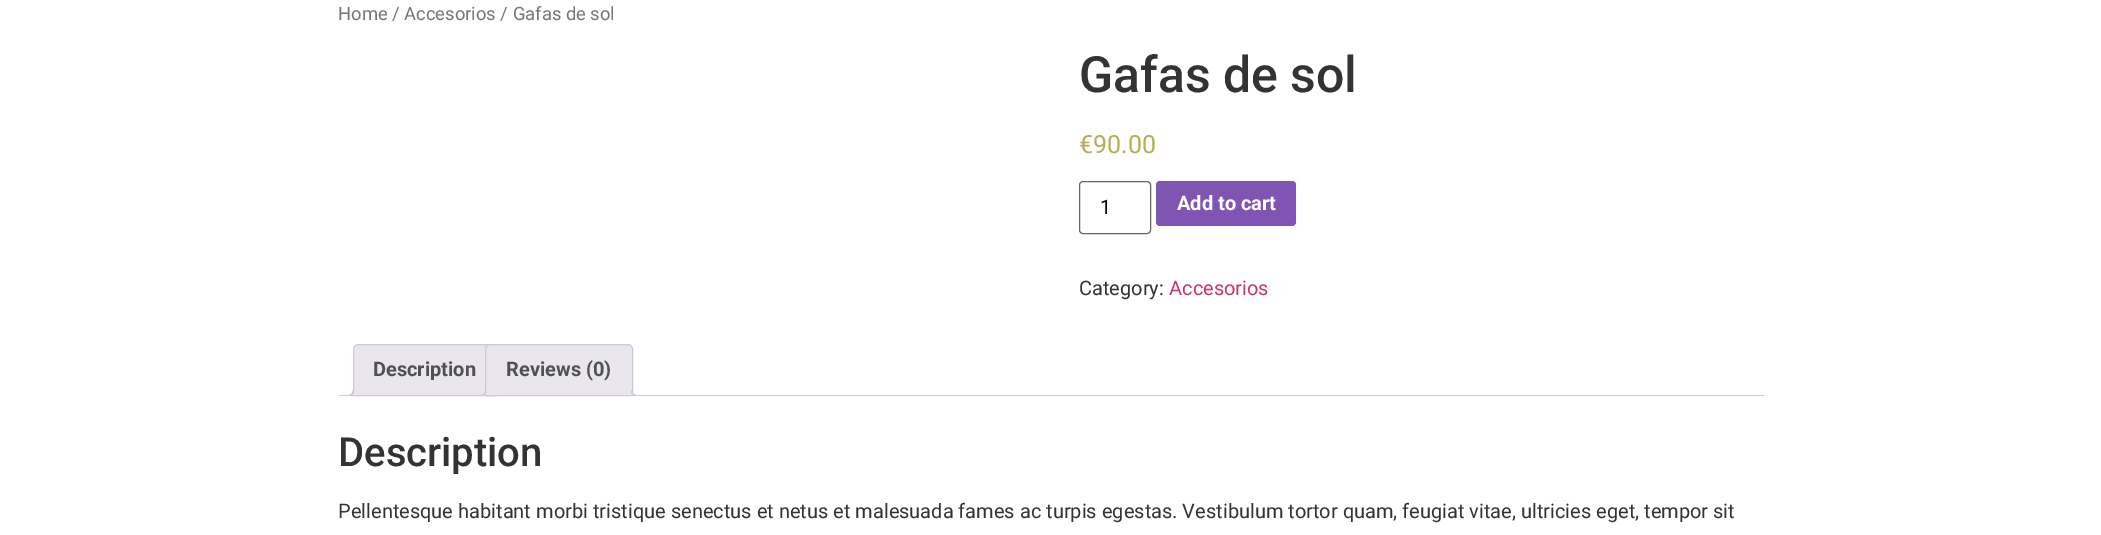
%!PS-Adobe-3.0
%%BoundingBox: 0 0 2101 535
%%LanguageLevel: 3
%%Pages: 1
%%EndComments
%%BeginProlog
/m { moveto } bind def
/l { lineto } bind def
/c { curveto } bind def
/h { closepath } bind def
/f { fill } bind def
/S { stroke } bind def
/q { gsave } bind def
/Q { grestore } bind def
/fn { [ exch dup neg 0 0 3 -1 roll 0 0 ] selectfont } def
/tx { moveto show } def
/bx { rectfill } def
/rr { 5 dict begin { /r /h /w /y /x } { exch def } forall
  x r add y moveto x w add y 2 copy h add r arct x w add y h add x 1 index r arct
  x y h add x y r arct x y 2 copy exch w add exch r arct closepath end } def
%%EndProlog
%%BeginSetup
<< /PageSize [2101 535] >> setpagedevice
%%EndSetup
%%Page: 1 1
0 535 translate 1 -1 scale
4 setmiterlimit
1 setgray
0 0 2101 535 bx
/Roboto-Regular 18.4 fn
0.463 setgray
(Home / Accesorios / Gafas de sol) 338 20 tx
/Roboto-Medium 50 fn
0.2 setgray
(Gafas de sol) 1079 92 tx
/Roboto-Regular 25 fn
0.702 0.686 0.329 setrgbcolor
(€90.00) 1079 153 tx
0.4 setgray
1079.5 181.5 71 52 3.5 rr S
/Roboto-Regular 20 fn
0 setgray
(1) 1100 214 tx
0.498 0.329 0.702 setrgbcolor
1156 181 140 45 4 rr f
/Roboto-Bold 20 fn
1 setgray
(Add to cart) 1177 210 tx
/Roboto-Regular 20 fn
0.2 setgray
(Category:) 1079 295 tx
0.8 0.2 0.4 setrgbcolor
(Accesorios) 1169 295 tx
0.914 0.902 0.929 setrgbcolor
358 344.5 m 493 344.5 l 495.5 344.5 497.5 346.5 497.5 349 c 497.5 395.5 l 353.5 395.5 l 353.5 349 l 353.5 346.5 355.5 344.5 358 344.5 c h q f Q
0.812 0.784 0.847 setrgbcolor
S
/Roboto-Bold 20 fn
0.318 setgray
(Description) 373 376 tx
q
339 344 1425 52 rectclip
0.914 0.902 0.929 setrgbcolor
350 396 m 350 399 l 354 399 356 397 356 393 c 353.5 393 l 353 394.5 351.5 395.5 350 396 c h f
Q
0.812 0.784 0.847 setrgbcolor
347.5 390 m 354 390 l 354 394.5 352 396 347.5 396 c h 347.5 390 m 352.5 390 l 352.5 393.5 351 395 347.5 395 c h eofill
0.914 0.902 0.929 setrgbcolor
490 344.5 m 628 344.5 l 630.5 344.5 632.5 346.5 632.5 349 c 632.5 395.5 l 485.5 395.5 l 485.5 349 l 485.5 346.5 487.5 344.5 490 344.5 c h q f Q
0.812 0.784 0.847 setrgbcolor
S
0.318 setgray
(Reviews \(0\)) 506 376 tx
q
339 344 1425 52 rectclip
0.914 0.902 0.929 setrgbcolor
483 396 m 483 399 l 487 399 489 397 489 393 c 486 393 l 485.5 394.5 484.5 395.5 483 396 c h f
Q
0.812 0.784 0.847 setrgbcolor
480 390 m 486 390 l 486 394.5 484.5 396 480 396 c h 480 390 m 485 390 l 485 393.5 483.5 395 480 395 c h eofill
q
339 344 1425 52 rectclip
0.914 0.902 0.929 setrgbcolor
629 393 m 629 397 631 399 635 399 c 635 396 l 633.5 395.5 632 394.5 631.5 393 c h f
Q
631 390 m 637.5 390 l 637.5 396 l 634.5 396 631 395 631 391 c h 632.5 390 m 637.5 390 l 637.5 395 l 635 395 632.5 394 632.5 391 c h eofill
339 395 1425 1 bx
/Roboto-Medium 40 fn
0.2 setgray
(Description) 338 466 tx
/Roboto-Regular 20 fn
(Pellentesque habitant morbi tristique senectus et netus et malesuada fames ac turpis egestas. Vestibulum tortor quam, feugiat vitae, ultricies eget, tempor sit) 338 518 tx
showpage
%%EOF
